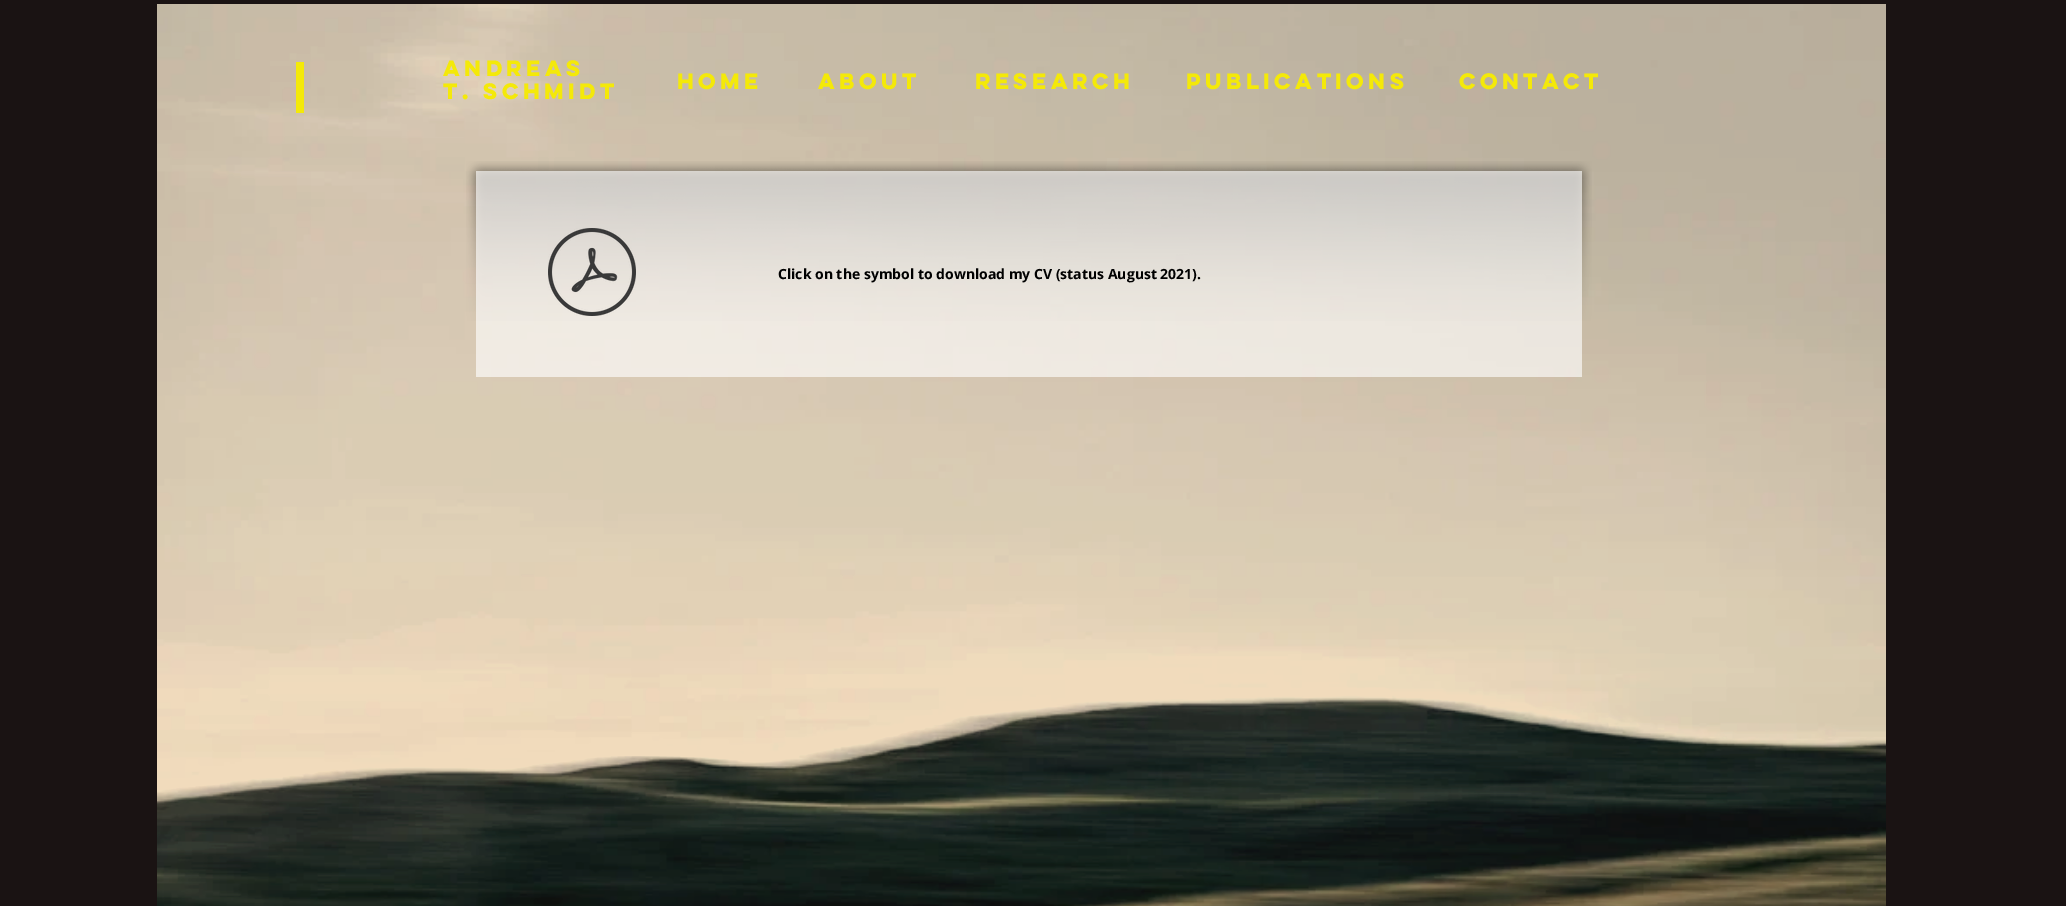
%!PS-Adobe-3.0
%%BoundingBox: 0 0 2066 906
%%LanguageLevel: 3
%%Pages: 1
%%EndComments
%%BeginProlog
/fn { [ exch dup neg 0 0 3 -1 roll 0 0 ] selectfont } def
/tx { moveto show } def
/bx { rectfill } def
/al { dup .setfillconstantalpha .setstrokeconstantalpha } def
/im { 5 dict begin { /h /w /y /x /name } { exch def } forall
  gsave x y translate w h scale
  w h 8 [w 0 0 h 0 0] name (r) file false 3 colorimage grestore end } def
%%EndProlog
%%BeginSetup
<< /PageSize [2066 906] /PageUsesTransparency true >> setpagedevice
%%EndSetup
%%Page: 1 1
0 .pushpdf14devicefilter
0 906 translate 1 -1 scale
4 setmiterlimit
0.102 0.075 0.075 setrgbcolor
0 0 2066 906 bx
(image0.raw) 157 4 1729 902 im
0.957 0.914 0.035 setrgbcolor
296 62 8 51 bx
/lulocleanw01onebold-Bold 20 fn
(ANDREAS) 443 76 tx
(T. SCHMIDT) 443 99 tx
(HOME) 677 89 tx
(ABOUT) 818 89 tx
(RESEARCH) 975 89 tx
(PUBLICATIONS) 1186 89 tx
(CONTACT) 1459 89 tx
(image1.raw) 466 161 45 160 im
(image2.raw) 511 161 1036 160 im
(image3.raw) 1547 161 45 160 im
0.63 al
1 setgray
476 171 1106 206 bx
1 al
(image4.raw) 548 228 88 88 im
/OpenSans-Bold 14 fn
0 setgray
(Click on the symbol to download my CV \(status August 2021\).) 778 279 tx
.poppdf14devicefilter showpage
%%EOF
